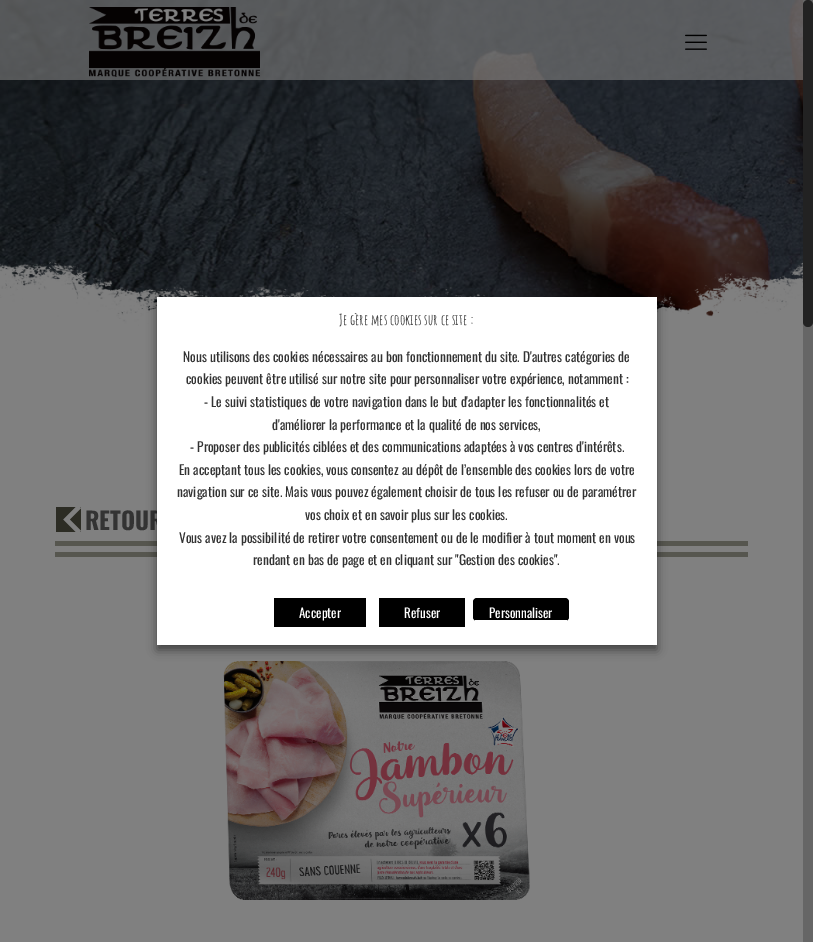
%!PS-Adobe-3.0
%%BoundingBox: 0 0 813 942
%%LanguageLevel: 3
%%Pages: 1
%%EndComments
%%BeginProlog
/f { fill } bind def
/fn { [ exch dup neg 0 0 3 -1 roll 0 0 ] selectfont } def
/tx { moveto show } def
/bx { rectfill } def
/al { dup .setfillconstantalpha .setstrokeconstantalpha } def
/rr { 5 dict begin { /r /h /w /y /x } { exch def } forall
  x r add y moveto x w add y 2 copy h add r arct x w add y h add x 1 index r arct
  x y h add x y r arct x y 2 copy exch w add exch r arct closepath end } def
/sh { 12 dict begin { /a /b /q /h /w /y /x } { exch def } forall gsave /was 0 def
  9 -2 -9 { dup b mul 4 div /e exch def 1 sub .425 mul 2.718 exch exp 1 add a .99 .min exch div /now exch def
    1 1 now sub 1 was sub div sub al /was now def
    w h .min e 2 mul add 0 gt { x e sub y e sub w e 2 mul add h e 2 mul add
      q e add b .6 mul add w h .min 2 div e add .min 0 .max rr fill } if } for grestore end } def
/im { 5 dict begin { /h /w /y /x /name } { exch def } forall
  gsave x y translate w h scale
  w h 8 [w 0 0 h 0 0] name (r) file false 3 colorimage grestore end } def
%%EndProlog
%%BeginSetup
<< /PageSize [813 942] /PageUsesTransparency true >> setpagedevice
%%EndSetup
%%Page: 1 1
0 .pushpdf14devicefilter
0 942 translate 1 -1 scale
4 setmiterlimit
0.502 setgray
0 0 813 942 bx
(image2.raw) 0 0 803 326 im
0.6 al
0 0 803 80 bx
1 al
(image0.raw) 89 7 171 70 im
(image1.raw) 685 34 22 16 im
(image3.raw) 0 246 803 89 im
(image4.raw) 56 507 25 25 im
/Oswald-Bold 24 fn
0.2 setgray
(RETOUR) 85 530 tx
0.337 0.337 0.31 setrgbcolor
55 541 102 5 bx
55 552 102 5 bx
657 541 91 5 bx
657 552 91 5 bx
(image5.raw) 223 661 307 239 im
0 setgray
157 302 500 348 0 5 0.5 sh
1 setgray
157 297 500 348 bx
/AmaticSC-Bold 15 fn
0.267 setgray
(Je gère mes cookies sur ce site :) 339 325 tx
/Oswald-Regular 13.35 fn
0.2 setgray
(Nous utilisons des cookies nécessaires au bon fonctionnement du site. D'autres catégories de) 183 362 tx
(cookies peuvent être utilisé sur notre site pour personnaliser votre expérience, notamment :) 186 384 tx
(- Le suivi statistiques de votre navigation dans le but d'adapter les fonctionnalités et) 204 407 tx
(d'améliorer la performance et la qualité de nos services,) 272 430 tx
(- Proposer des publicités ciblées et des communications adaptées à vos centres d'intérêts.) 190 452 tx
(En acceptant tous les cookies, vous consentez au dépôt de l’ensemble des cookies lors de votre) 179 475 tx
(navigation sur ce site. Mais vous pouvez également choisir de tous les refuser ou de paramétrer) 177 497 tx
(vos choix et en savoir plus sur les cookies.) 305 520 tx
(Vous avez la possibilité de retirer votre consentement ou de le modifier à tout moment en vous) 179 543 tx
(rendant en bas de page et en cliquant sur "Gestion des cookies".) 253 565 tx
0 setgray
274 598 92 29 bx
/Oswald-Regular 13 fn
1 setgray
(Accepter) 299 618 tx
0 setgray
379 598 86 29 bx
1 setgray
(Refuser) 404 618 tx
0 setgray
473 598 96 23 4 rr f
1 setgray
475 620 92 1 bx
(Personnaliser) 489 618 tx
0.4 setgray
803 0 10 942 bx
0.133 setgray
803 0 10 327 5 rr f
.poppdf14devicefilter showpage
%%EOF
